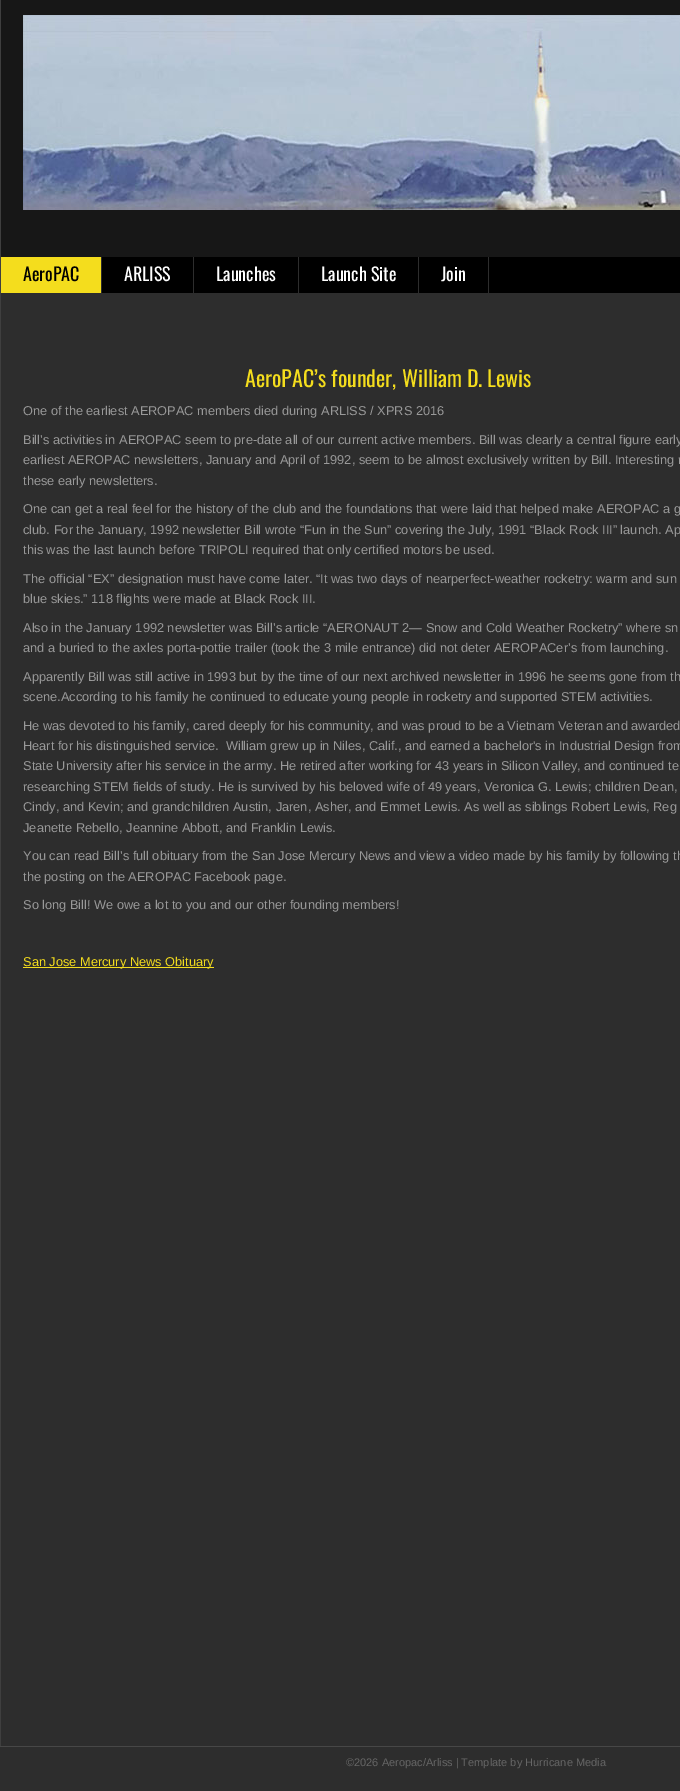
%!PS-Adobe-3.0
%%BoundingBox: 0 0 680 1791
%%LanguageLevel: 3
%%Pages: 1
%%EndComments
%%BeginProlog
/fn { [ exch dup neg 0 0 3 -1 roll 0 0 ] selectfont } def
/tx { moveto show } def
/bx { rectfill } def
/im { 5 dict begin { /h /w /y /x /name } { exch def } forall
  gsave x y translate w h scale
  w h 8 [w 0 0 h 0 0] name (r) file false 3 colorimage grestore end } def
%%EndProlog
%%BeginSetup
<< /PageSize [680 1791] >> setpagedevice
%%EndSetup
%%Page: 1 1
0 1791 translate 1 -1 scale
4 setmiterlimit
0.176 setgray
0 0 680 1791 bx
0.247 setgray
0 0 1 1746 bx
0.09 setgray
1 0 679 257 bx
(image0.raw) 23 15 657 195 im
0 setgray
489 257 191 36 bx
0.957 0.867 0.114 setrgbcolor
1 257 100 36 bx
/Oswald-Regular 18 fn
0 setgray
(AeroPAC) 23 281 tx
102 257 91 36 bx
1 setgray
(ARLISS) 124 281 tx
0 setgray
194 257 104 36 bx
1 setgray
(Launches) 216 281 tx
0 setgray
299 257 119 36 bx
1 setgray
(Launch Site) 321 281 tx
0 setgray
419 257 69 36 bx
1 setgray
(Join) 441 281 tx
/Oswald-Regular 22 fn
0.957 0.867 0.114 setrgbcolor
(AeroPAC’s founder, William D. Lewis) 245 387 tx
/LiberationSans-Regular 12.8 fn
0.6 setgray
(One of the earliest AEROPAC members died during ARLISS / XPRS 2016) 23 415 tx
(Bill’s activities in AEROPAC seem to pre-date all of our current active members. Bill was clearly a central figure early) 23 444 tx
(earliest AEROPAC newsletters, January and April of 1992, seem to be almost exclusively written by Bill. Interesting r) 23 464 tx
(these early newsletters.) 23 485 tx
(One can get a real feel for the history of the club and the foundations that were laid that helped make AEROPAC a g) 23 513 tx
(club. For the January, 1992 newsletter Bill wrote “Fun in the Sun” covering the July, 1991 “Black Rock III” launch. Ap) 23 534 tx
(this was the last launch before TRIPOLI required that only certified motors be used.) 23 554 tx
(The official “EX” designation must have come later. “It was two days of nearperfect-weather rocketry: warm and sun) 23 583 tx
(blue skies.” 118 flights were made at Black Rock III.) 23 603 tx
(Also in the January 1992 newsletter was Bill’s article “AERONAUT 2— Snow and Cold Weather Rocketry” where sn) 23 632 tx
(and a buried to the axles porta-pottie trailer \(took the 3 mile entrance\) did not deter AEROPACer’s from launching.) 23 652 tx
(Apparently Bill was still active in 1993 but by the time of our next archived newsletter in 1996 he seems gone from th) 23 681 tx
(scene.According to his family he continued to educate young people in rocketry and supported STEM activities.) 23 701 tx
(He was devoted to his family, cared deeply for his community, and was proud to be a Vietnam Veteran and awarded) 23 730 tx
(Heart for his distinguished service.  William grew up in Niles, Calif., and earned a bachelor's in Industrial Design from) 23 750 tx
(State University after his service in the army. He retired after working for 43 years in Silicon Valley, and continued te) 23 770 tx
(researching STEM fields of study. He is survived by his beloved wife of 49 years, Veronica G. Lewis; children Dean,) 23 791 tx
(Cindy, and Kevin; and grandchildren Austin, Jaren, Asher, and Emmet Lewis. As well as siblings Robert Lewis, Reg) 23 811 tx
(Jeanette Rebello, Jeannine Abbott, and Franklin Lewis.) 23 832 tx
(You can read Bill’s full obituary from the San Jose Mercury News and view a video made by his family by following th) 23 860 tx
(the posting on the AEROPAC Facebook page.) 23 881 tx
(So long Bill! We owe a lot to you and our other founding members!) 23 909 tx
0.957 0.867 0.114 setrgbcolor
23 967 191 1 bx
(San Jose Mercury News Obituary) 23 966 tx
0.278 setgray
0 1746 680 1 bx
/LiberationSans-Regular 11 fn
0.4 setgray
(©2026 Aeropac/Arliss | Template by Hurricane Media) 346 1766 tx
showpage
%%EOF
